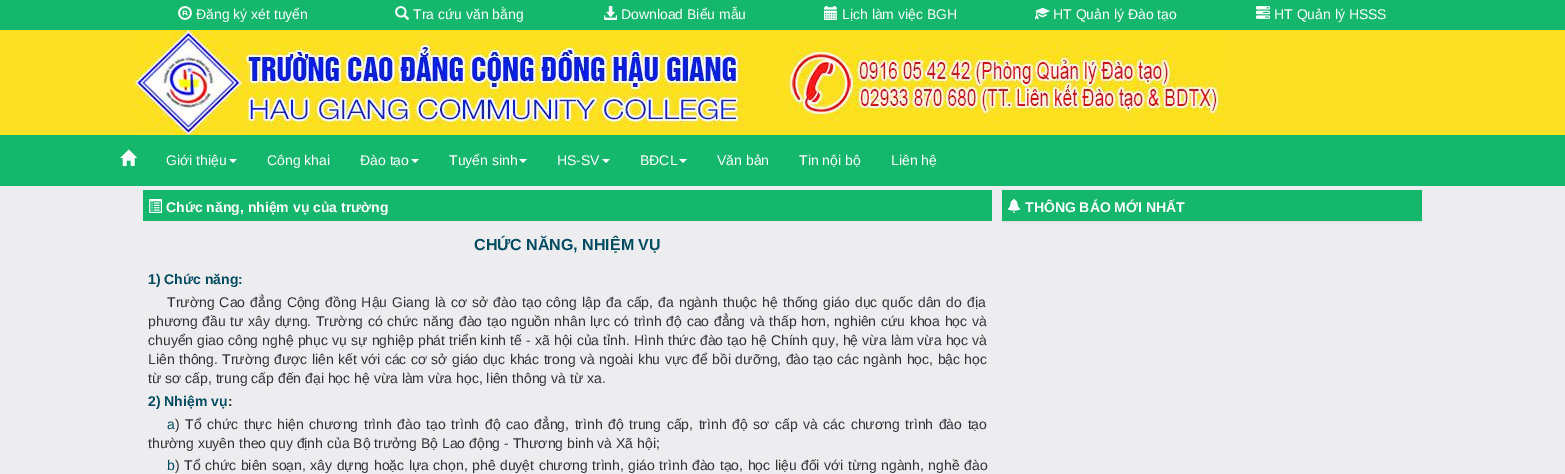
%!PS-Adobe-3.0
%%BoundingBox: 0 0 1565 474
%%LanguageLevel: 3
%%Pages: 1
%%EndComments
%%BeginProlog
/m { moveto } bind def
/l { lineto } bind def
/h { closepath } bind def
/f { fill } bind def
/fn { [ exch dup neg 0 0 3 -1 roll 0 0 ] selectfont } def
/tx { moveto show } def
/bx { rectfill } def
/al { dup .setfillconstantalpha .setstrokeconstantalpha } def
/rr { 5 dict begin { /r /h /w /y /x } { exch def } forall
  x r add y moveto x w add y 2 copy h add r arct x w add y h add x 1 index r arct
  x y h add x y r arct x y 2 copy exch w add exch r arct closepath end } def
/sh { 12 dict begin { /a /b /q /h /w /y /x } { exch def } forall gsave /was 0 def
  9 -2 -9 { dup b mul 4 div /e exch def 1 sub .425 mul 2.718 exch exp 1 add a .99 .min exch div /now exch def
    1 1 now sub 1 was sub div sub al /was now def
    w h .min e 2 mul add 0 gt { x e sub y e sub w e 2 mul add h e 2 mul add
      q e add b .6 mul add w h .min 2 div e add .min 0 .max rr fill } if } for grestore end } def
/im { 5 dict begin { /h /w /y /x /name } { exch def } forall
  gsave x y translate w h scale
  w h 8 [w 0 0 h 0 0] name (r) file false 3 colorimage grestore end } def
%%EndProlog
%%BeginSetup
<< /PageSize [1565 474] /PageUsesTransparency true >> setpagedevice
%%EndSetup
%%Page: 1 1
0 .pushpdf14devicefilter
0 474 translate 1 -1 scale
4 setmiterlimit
0.929 0.929 0.941 setrgbcolor
0 0 1565 474 bx
0.082 0.718 0.424 setrgbcolor
0 0 1565 30 bx
(image0.raw) 178 6 14 14 im
/LiberationSans-Regular 14 fn
1 setgray
(Đăng ký xét tuyển) 196 19 tx
(image1.raw) 395 6 15 14 im
(Tra cứu văn bằng) 413 19 tx
(image2.raw) 604 6 13 14 im
(Download Biểu mẫu) 621 19 tx
(image3.raw) 824 6 13 14 im
(Lịch làm việc BGH) 842 19 tx
(image4.raw) 1035 7 15 13 im
(HT Quản lý Đào tạo) 1053 19 tx
(image5.raw) 1256 6 14 13 im
(HT Quản lý HSSS) 1274 19 tx
0.992 0.878 0.133 setrgbcolor
0 30 1565 105 bx
(image6.raw) 135 30 1089 105 im
0.082 0.718 0.424 setrgbcolor
0 135 1565 51 bx
(image7.raw) 120 149 18 17 im
1 setgray
(Giới thiệu) 166 165 tx
229 159 m 237 159 l 233 163 l h f
(Công khai) 267 165 tx
(Đào tạo) 360 165 tx
411 159 m 419 159 l 415 163 l h f
(Tuyển sinh) 449 165 tx
519 159 m 527 159 l 523 163 l h f
(HS-SV) 557 165 tx
602 159 m 610 159 l 606 163 l h f
(BĐCL) 640 165 tx
679 159 m 687 159 l 683 163 l h f
(Văn bản) 717 165 tx
(Tin nội bộ) 799 165 tx
(Liên hệ) 891 165 tx
0.082 0.718 0.424 setrgbcolor
143 190 849 31 bx
(image8.raw) 149 199 13 14 im
/LiberationSans-Bold 14 fn
1 setgray
(Chức năng, nhiệm vụ của trường) 166 212 tx
/LiberationSans-Bold 16 fn
0.004 0.294 0.376 setrgbcolor
(CHỨC NĂNG, NHIỆM VỤ) 474 250 tx
/LiberationSans-Bold 14 fn
(1\) Chức năng:) 148 284 tx
/LiberationSans-Regular 14 fn
0.2 setgray
167 307 m 1.25 0 32 (Trường Cao đẳng Cộng đồng Hậu Giang là cơ sở đào tạo công lập đa cấp, đa ngành thuộc hệ thống giáo dục quốc dân do địa) widthshow
148 326 m 0.75 0 32 (phương đầu tư xây dựng. Trường có chức năng đào tạo nguồn nhân lực có trình độ cao đẳng và thấp hơn, nghiên cứu khoa học và) widthshow
148 345 m 0.25 0 32 (chuyển giao công nghệ phục vụ sự nghiệp phát triển kinh tế - xã hội của tỉnh. Hình thức đào tạo hệ Chính quy, hệ vừa làm vừa học và) widthshow
148 364 m 0.5 0 32 (Liên thông. Trường được liên kết với các cơ sở giáo dục khác trong và ngoài khu vực để bồi dưỡng, đào tạo các ngành học, bậc học) widthshow
(từ sơ cấp, trung cấp đến đại học hệ vừa làm vừa học, liên thông và từ xa.) 148 383 tx
/LiberationSans-Bold 14 fn
0.004 0.294 0.376 setrgbcolor
(2\) Nhiệm vụ) 148 406 tx
0.2 setgray
(:) 228 406 tx
/LiberationSans-Regular 14 fn
0.004 0.294 0.376 setrgbcolor
(a) 167 429 tx
0.2 setgray
175 429 m 1.65 0 32 (\) Tổ chức thực hiện chương trình đào tạo trình độ cao đẳng, trình độ trung cấp, trình độ sơ cấp và các chương trình đào tạo) widthshow
(thường xuyên theo quy định của Bộ trưởng Bộ Lao động - Thương binh và Xã hội;) 148 448 tx
0.004 0.294 0.376 setrgbcolor
(b) 167 470 tx
0.2 setgray
175 470 m 0.6 0 32 (\) Tổ chức biên soạn, xây dựng hoặc lựa chọn, phê duyệt chương trình, giáo trình đào tạo, học liệu đối với từng ngành, nghề đào) widthshow
0 setgray
1002 191 420 31 0 0.5 0.05 sh
0.082 0.718 0.424 setrgbcolor
1002 190 420 31 bx
(image9.raw) 1007 199 14 14 im
/LiberationSans-Bold 14 fn
1 setgray
(THÔNG BÁO MỚI NHẤT) 1025 212 tx
.poppdf14devicefilter showpage
%%EOF
